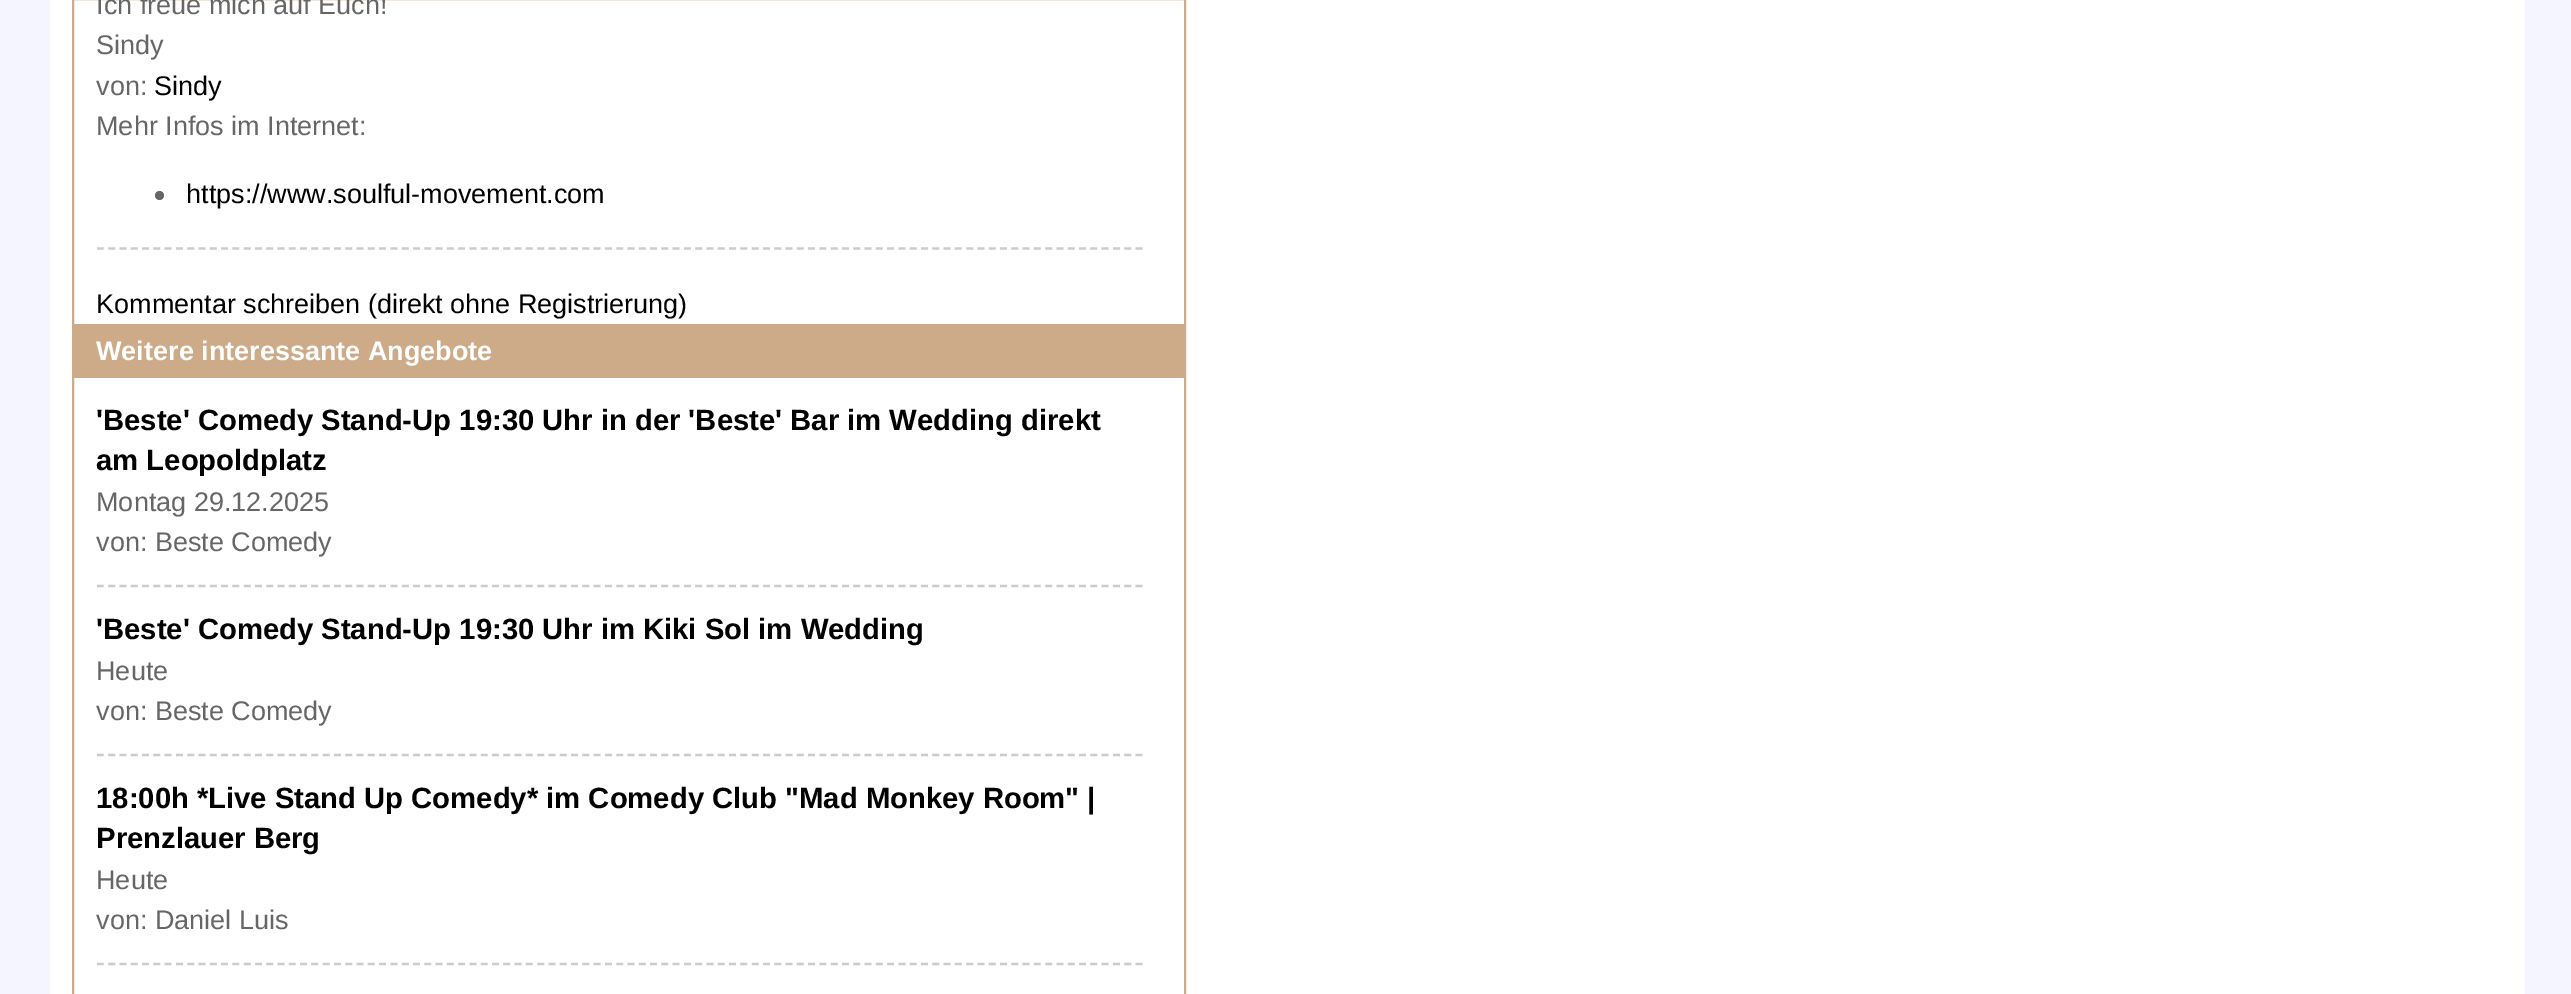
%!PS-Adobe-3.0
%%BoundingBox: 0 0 2571 994
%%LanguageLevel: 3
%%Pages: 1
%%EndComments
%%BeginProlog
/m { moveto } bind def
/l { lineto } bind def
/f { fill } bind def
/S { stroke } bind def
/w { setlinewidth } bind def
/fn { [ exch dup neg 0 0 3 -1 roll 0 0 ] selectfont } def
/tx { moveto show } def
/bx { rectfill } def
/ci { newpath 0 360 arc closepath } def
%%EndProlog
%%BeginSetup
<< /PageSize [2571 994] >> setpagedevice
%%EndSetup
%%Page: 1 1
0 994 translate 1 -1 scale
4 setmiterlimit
0.961 0.961 1 setrgbcolor
0 0 2571 994 bx
1 setgray
50 0 2475 994 bx
0.804 0.671 0.537 setrgbcolor
2 w
73 -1 1112 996 rectstroke
/LiberationSans-Regular 27 fn
0.4 setgray
(Ich freue mich auf Euch!) 96 14 tx
(Sindy) 96 54 tx
(von:) 96 95 tx
0 setgray
(Sindy) 154 95 tx
0.4 setgray
(Mehr Infos im Internet:) 96 135 tx
159.5 195.5 4.5 ci f
0 setgray
(https://www.soulful-movement.com) 186 203 tx
0.8 setgray
2.2 w
[6.75 4.54] 0 setdash
97 248.5 m 1143 248.5 l S
0 setgray
(Kommentar schreiben \(direkt ohne Registrierung\)) 96 313 tx
0.804 0.671 0.537 setrgbcolor
74 324 1110 54 bx
/LiberationSans-Bold 27 fn
1 setgray
(Weitere interessante Angebote) 96 360 tx
0.8 setgray
97 586 m 1143 586 l S
/LiberationSans-Bold 29.25 fn
0 setgray
('Beste' Comedy Stand-Up 19:30 Uhr in der 'Beste' Bar im Wedding direkt) 96 430 tx
(am Leopoldplatz) 96 470 tx
/LiberationSans-Regular 27 fn
0.4 setgray
(Montag 29.12.2025) 96 511 tx
(von: Beste Comedy) 96 551 tx
0.8 setgray
97 755 m 1143 755 l S
/LiberationSans-Bold 29.25 fn
0 setgray
('Beste' Comedy Stand-Up 19:30 Uhr im Kiki Sol im Wedding) 96 639 tx
/LiberationSans-Regular 27 fn
0.4 setgray
(Heute) 96 680 tx
(von: Beste Comedy) 96 720 tx
0.8 setgray
97 964 m 1143 964 l S
/LiberationSans-Bold 29.25 fn
0 setgray
(18:00h *Live Stand Up Comedy* im Comedy Club "Mad Monkey Room" |) 96 808 tx
(Prenzlauer Berg) 96 848 tx
/LiberationSans-Regular 27 fn
0.4 setgray
(Heute) 96 889 tx
(von: Daniel Luis) 96 929 tx
showpage
%%EOF
